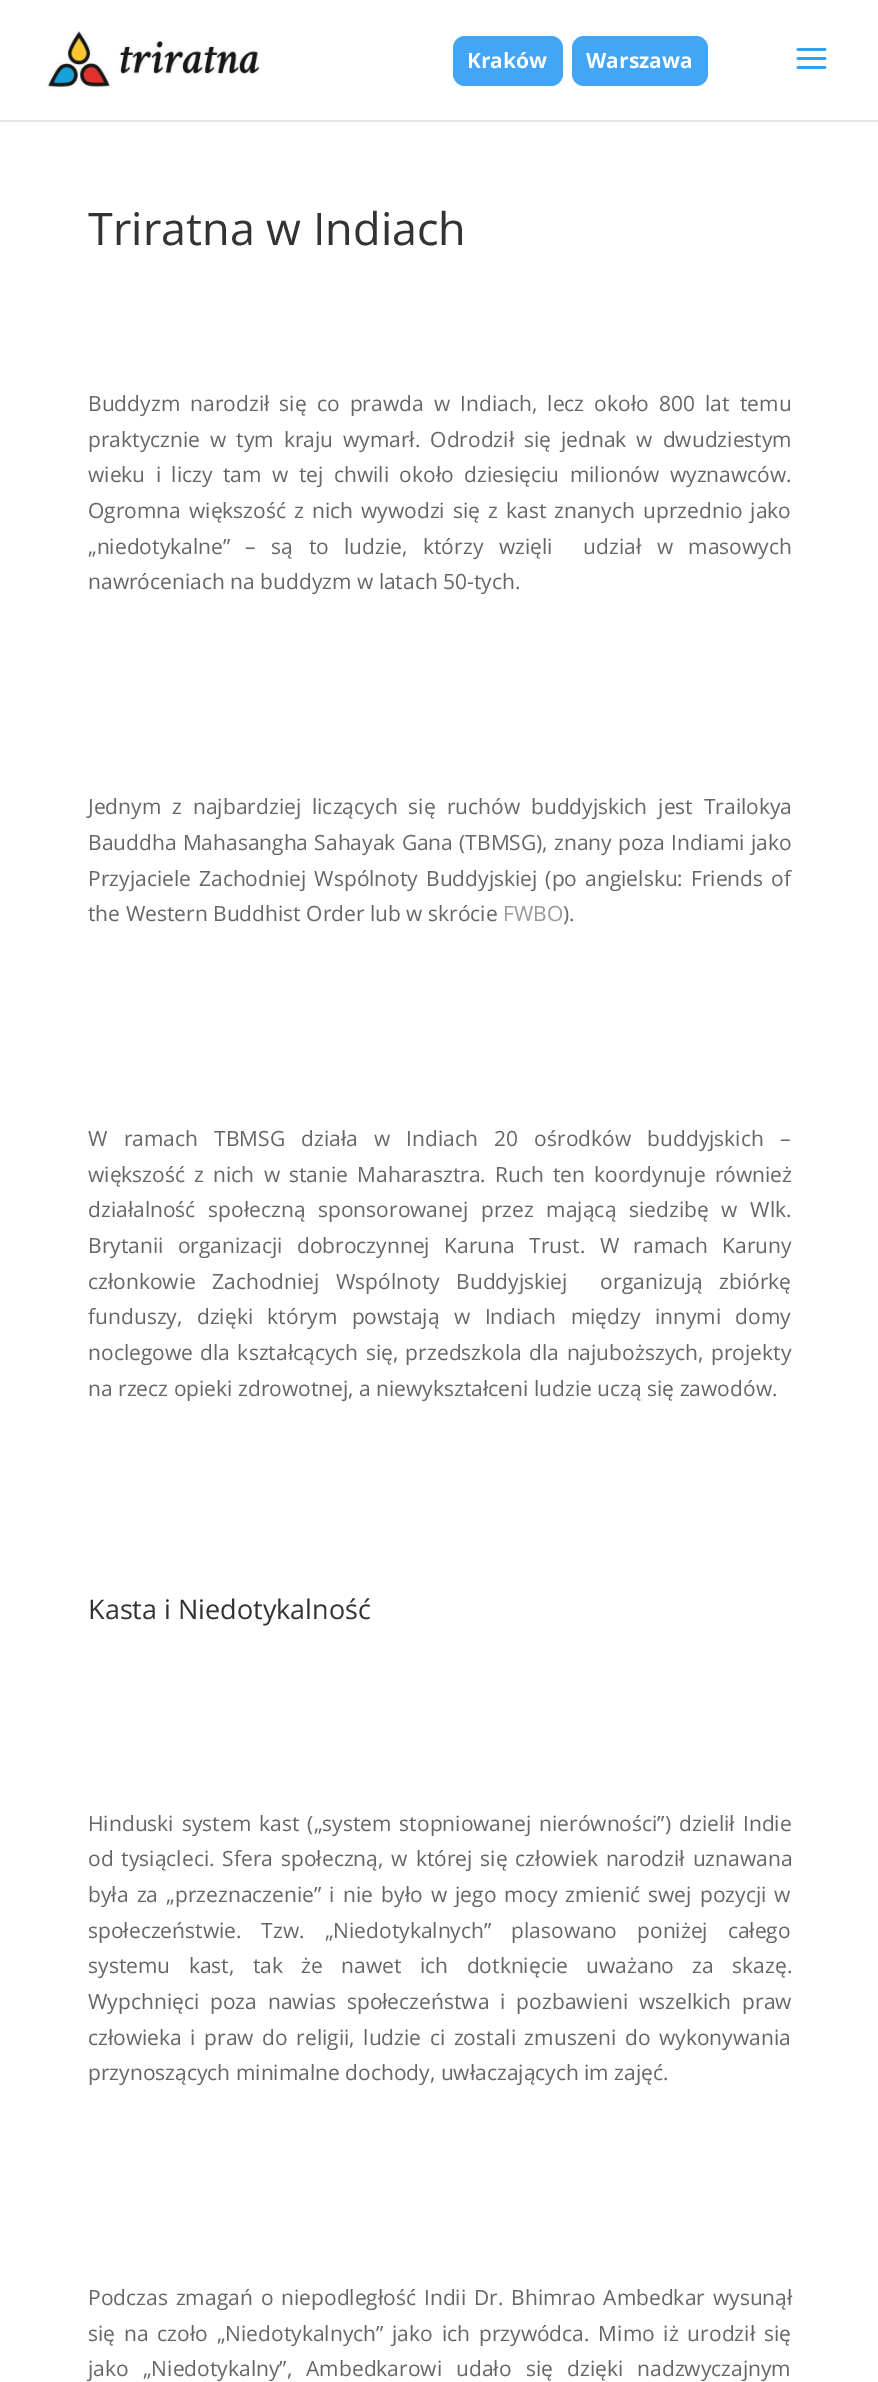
%!PS-Adobe-3.0
%%BoundingBox: 0 0 878 2382
%%LanguageLevel: 3
%%Pages: 1
%%EndComments
%%BeginProlog
/m { moveto } bind def
/f { fill } bind def
/fn { [ exch dup neg 0 0 3 -1 roll 0 0 ] selectfont } def
/tx { moveto show } def
/bx { rectfill } def
/rr { 5 dict begin { /r /h /w /y /x } { exch def } forall
  x r add y moveto x w add y 2 copy h add r arct x w add y h add x 1 index r arct
  x y h add x y r arct x y 2 copy exch w add exch r arct closepath end } def
/im { 5 dict begin { /h /w /y /x /name } { exch def } forall
  gsave x y translate w h scale
  w h 8 [w 0 0 h 0 0] name (r) file false 3 colorimage grestore end } def
%%EndProlog
%%BeginSetup
<< /PageSize [878 2382] >> setpagedevice
%%EndSetup
%%Page: 1 1
0 2382 translate 1 -1 scale
4 setmiterlimit
1 setgray
0 0 878 2382 bx
0.902 setgray
0 120 878 2 bx
(image0.raw) 46 31 214 58 im
0.259 0.647 0.961 setrgbcolor
453 36 110 50 12 rr f
/OpenSans-Bold 21 fn
1 setgray
(Kraków) 467 68 tx
0.259 0.647 0.961 setrgbcolor
572 36 136 50 12 rr f
1 setgray
(Warszawa) 586 68 tx
(image1.raw) 796 48 31 21 im
/OpenSans-Regular 45 fn
0.2 setgray
(Triratna w Indiach) 88 245 tx
/OpenSans-Regular 21 fn
0.4 setgray
88 411 m 4.75 0 32 (Buddyzm narodził się co prawda w Indiach, lecz około 800 lat temu) widthshow
88 447 m 4.5 0 32 (praktycznie w tym kraju wymarł. Odrodził się jednak w dwudziestym) widthshow
88 482 m 5 0 32 (wieku i liczy tam w tej chwili około dziesięciu milionów wyznawców.) widthshow
88 518 m 2.6 0 32 (Ogromna większość z nich wywodzi się z kast znanych uprzednio jako) widthshow
88 554 m 10 0 32 („niedotykalne” – są to ludzie, którzy wzięli  udział w masowych) widthshow
(nawróceniach na buddyzm w latach 50-tych.) 88 589 tx
88 814 m 5.5 0 32 (Jednym z najbardziej liczących się ruchów buddyjskich jest Trailokya) widthshow
88 850 m 0.75 0 32 (Bauddha Mahasangha Sahayak Gana \(TBMSG\), znany poza Indiami jako) widthshow
88 886 m 2.6 0 32 (Przyjaciele Zachodniej Wspólnoty Buddyjskiej \(po angielsku: Friends of) widthshow
(the Western Buddhist Order lub w skrócie) 88 921 tx
0.6 setgray
(FWBO) 503 921 tx
0.4 setgray
(\).) 563 921 tx
88 1146 m 10.75 0 32 (W ramach TBMSG działa w Indiach 20 ośrodków buddyjskich –) widthshow
88 1182 m 3.75 0 32 (większość z nich w stanie Maharasztra. Ruch ten koordynuje również) widthshow
88 1217 m 7.25 0 32 (działalność społeczną sponsorowanej przez mającą siedzibę w Wlk.) widthshow
88 1253 m 9 0 32 (Brytanii organizacji dobroczynnej Karuna Trust. W ramach Karuny) widthshow
88 1289 m 11 0 32 (członkowie Zachodniej Wspólnoty Buddyjskiej  organizują zbiórkę) widthshow
88 1324 m 9 0 32 (funduszy, dzięki którym powstają w Indiach między innymi domy) widthshow
88 1360 m 2 0 32 (noclegowe dla kształcących się, przedszkola dla najuboższych, projekty) widthshow
(na rzecz opieki zdrowotnej, a niewykształceni ludzie uczą się zawodów.) 88 1396 tx
/OpenSans-Regular 27 fn
0.2 setgray
(Kasta i Niedotykalność) 88 1619 tx
/OpenSans-Regular 21 fn
0.4 setgray
88 1831 m 2.6 0 32 (Hinduski system kast \(„system stopniowanej nierówności”\) dzielił Indie) widthshow
88 1866 m 2.5 0 32 (od tysiącleci. Sfera społeczną, w której się człowiek narodził uznawana) widthshow
88 1902 m 2.75 0 32 (była za „przeznaczenie” i nie było w jego mocy zmienić swej pozycji w) widthshow
88 1938 m 14.5 0 32 (społeczeństwie. Tzw. „Niedotykalnych” plasowano poniżej całego) widthshow
88 1973 m 13 0 32 (systemu kast, tak że nawet ich dotknięcie uważano za skazę.) widthshow
88 2009 m 5.5 0 32 (Wypchnięci poza nawias społeczeństwa i pozbawieni wszelkich praw) widthshow
88 2045 m 3.1 0 32 (człowieka i praw do religii, ludzie ci zostali zmuszeni do wykonywania) widthshow
(przynoszących minimalne dochody, uwłaczających im zajęć.) 88 2080 tx
88 2305 m 2.5 0 32 (Podczas zmagań o niepodległość Indii Dr. Bhimrao Ambedkar wysunął) widthshow
88 2341 m 3.4 0 32 (się na czoło „Niedotykalnych” jako ich przywódca. Mimo iż urodził się) widthshow
88 2376 m 8.75 0 32 (jako „Niedotykalny”, Ambedkarowi udało się dzięki nadzwyczajnym) widthshow
showpage
%%EOF
